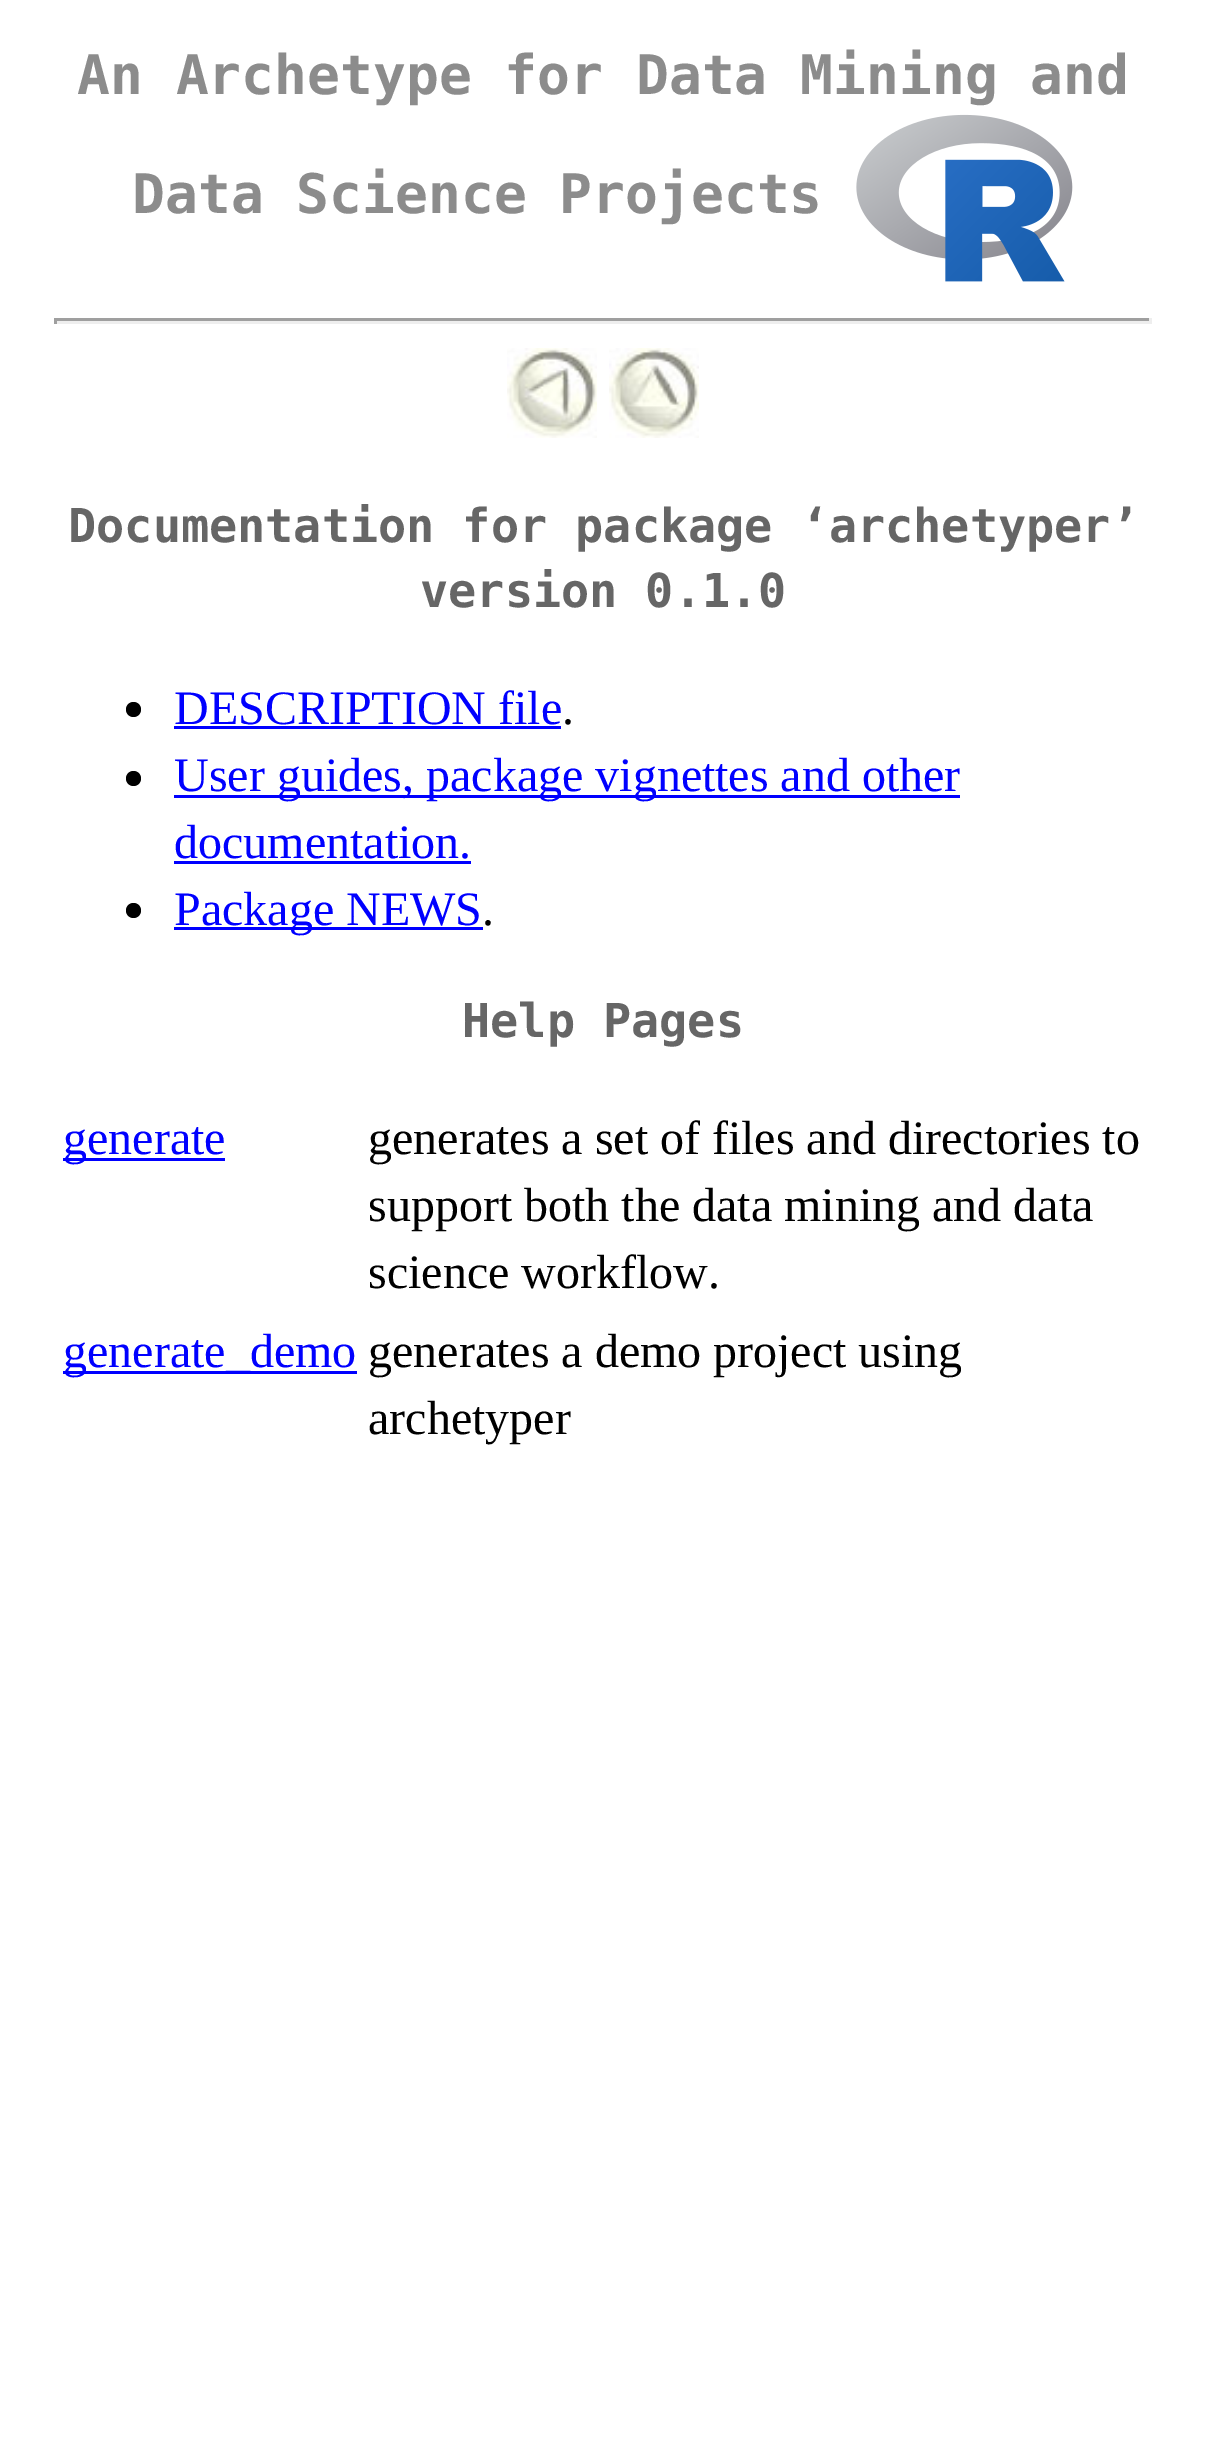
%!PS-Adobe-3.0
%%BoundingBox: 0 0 1206 2437
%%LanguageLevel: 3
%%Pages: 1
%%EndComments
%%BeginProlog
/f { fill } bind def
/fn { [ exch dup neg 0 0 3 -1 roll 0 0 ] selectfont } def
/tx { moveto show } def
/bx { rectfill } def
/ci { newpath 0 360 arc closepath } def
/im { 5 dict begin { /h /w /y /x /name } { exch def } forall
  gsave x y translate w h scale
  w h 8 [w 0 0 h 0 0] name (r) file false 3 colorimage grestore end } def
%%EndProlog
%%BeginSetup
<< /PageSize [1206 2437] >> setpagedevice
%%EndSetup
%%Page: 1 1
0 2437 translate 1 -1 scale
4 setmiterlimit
1 setgray
0 0 1206 2437 bx
/DejaVuSansMono-Bold 54.6 fn
0.549 setgray
(An Archetype for Data Mining and) 77 94 tx
(Data Science Projects) 132 213 tx
(image0.raw) 856 114 217 168 im
0.624 setgray
54 318 1098 3 bx
0.933 setgray
1149 318 3 6 bx
54 321 1098 3 bx
0.624 setgray
54 318 3 6 bx
(image1.raw) 507 348 90 90 im
(image2.raw) 609 348 90 90 im
/DejaVuSansMono-Bold 46.8 fn
0.4 setgray
(Documentation for package ‘archetyper’) 68 542 tx
(version 0.1.0) 420 607 tx
0 setgray
133.5 709.5 7.5 ci f
/LiberationSerif-Regular 48 fn
0 0 1 setrgbcolor
(DESCRIPTION file) 174 724 tx
174 726 387 3 bx
0 setgray
(.) 562 724 tx
133.5 778.5 7.5 ci f
0 0 1 setrgbcolor
174 795 786 3 bx
(User guides, package vignettes and other) 174 791 tx
(documentation.) 174 858 tx
174 861 297 3 bx
0 setgray
133.5 910.5 7.5 ci f
0 0 1 setrgbcolor
174 927 309 3 bx
(Package NEWS) 174 925 tx
0 setgray
(.) 482 925 tx
/DejaVuSansMono-Bold 46.8 fn
0.4 setgray
(Help Pages) 462 1037 tx
0 0 1 setrgbcolor
63 1158 162 3 bx
/LiberationSerif-Regular 48 fn
(generate) 63 1154 tx
0 setgray
(generates a set of files and directories to) 368 1154 tx
(support both the data mining and data) 368 1221 tx
(science workflow.) 368 1288 tx
0 0 1 setrgbcolor
63 1371 294 3 bx
(generate_demo) 63 1367 tx
0 setgray
(generates a demo project using) 368 1367 tx
(archetyper) 368 1434 tx
showpage
%%EOF
